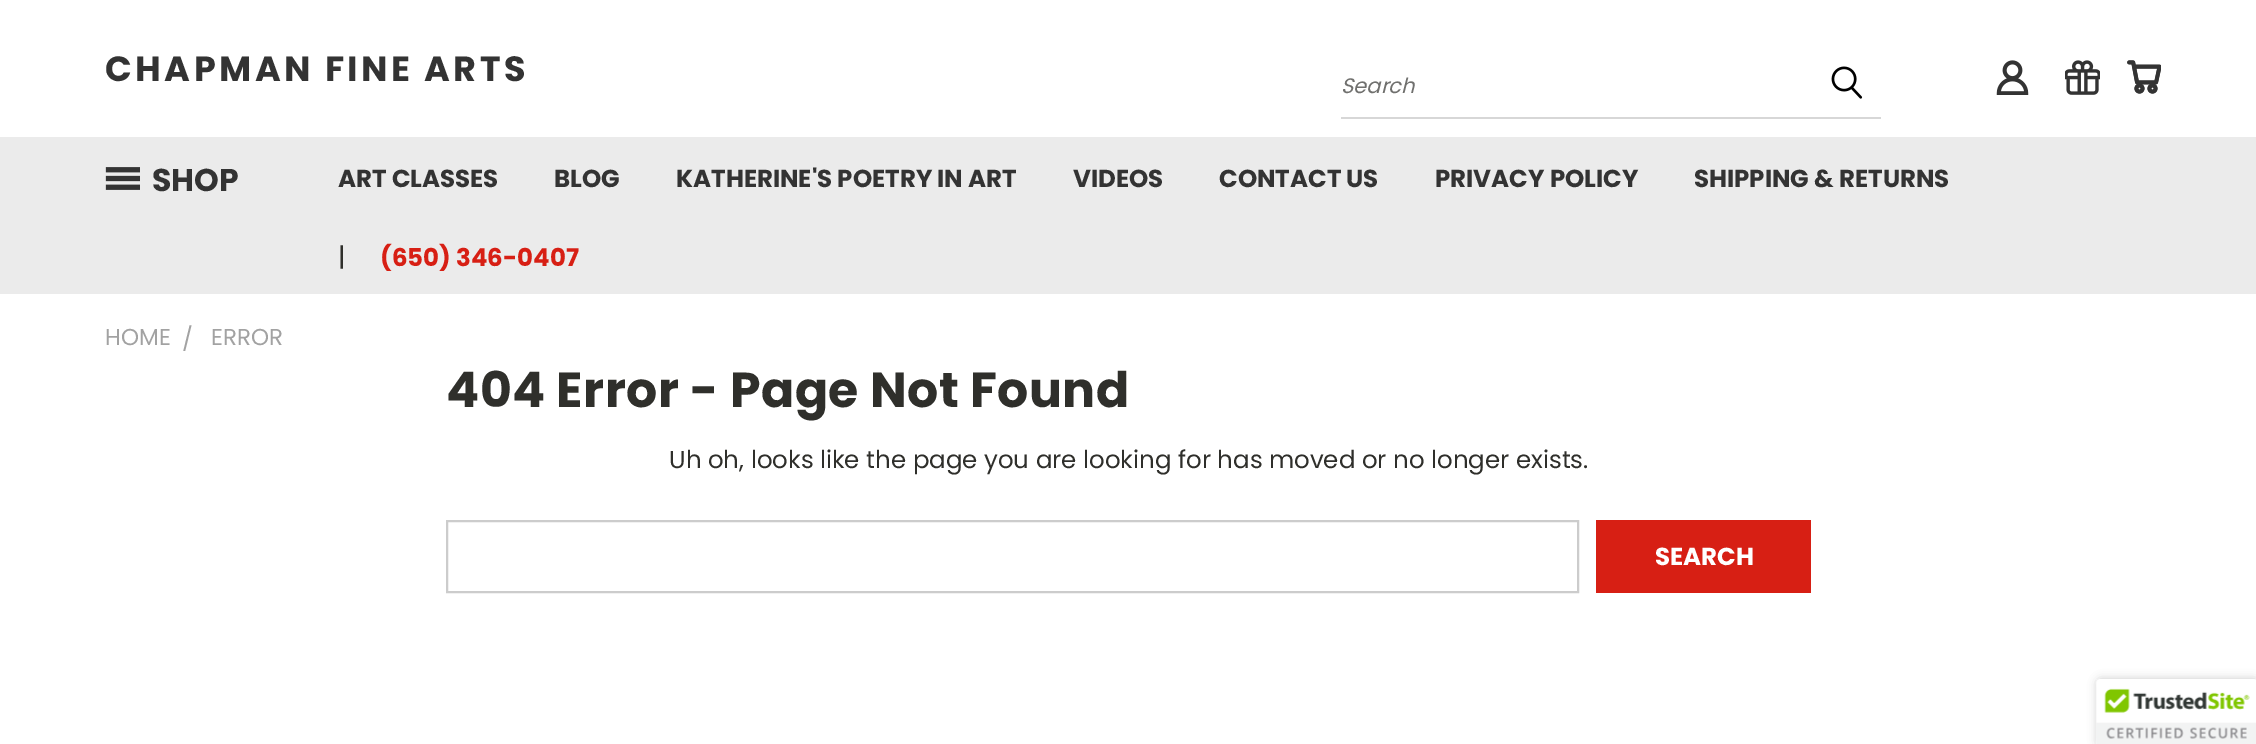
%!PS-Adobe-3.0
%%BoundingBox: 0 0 2256 744
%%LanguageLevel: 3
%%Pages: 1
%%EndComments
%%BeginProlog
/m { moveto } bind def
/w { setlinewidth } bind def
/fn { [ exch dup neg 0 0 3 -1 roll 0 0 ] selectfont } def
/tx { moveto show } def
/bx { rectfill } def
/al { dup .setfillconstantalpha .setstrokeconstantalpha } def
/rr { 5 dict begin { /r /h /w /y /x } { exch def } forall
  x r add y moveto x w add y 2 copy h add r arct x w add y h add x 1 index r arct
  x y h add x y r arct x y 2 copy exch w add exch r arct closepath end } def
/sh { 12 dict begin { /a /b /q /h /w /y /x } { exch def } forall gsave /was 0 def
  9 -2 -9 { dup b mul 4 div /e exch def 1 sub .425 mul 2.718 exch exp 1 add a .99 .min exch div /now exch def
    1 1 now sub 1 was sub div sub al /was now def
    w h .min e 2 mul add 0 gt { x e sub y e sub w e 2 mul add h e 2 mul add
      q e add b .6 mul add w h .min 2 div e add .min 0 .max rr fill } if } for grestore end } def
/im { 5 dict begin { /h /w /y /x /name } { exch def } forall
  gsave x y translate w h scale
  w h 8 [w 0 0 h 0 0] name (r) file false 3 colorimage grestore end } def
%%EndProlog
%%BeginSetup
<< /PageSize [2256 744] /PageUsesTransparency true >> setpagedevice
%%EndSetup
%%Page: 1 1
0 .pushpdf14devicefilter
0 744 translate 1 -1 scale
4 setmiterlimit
1 setgray
0 0 2256 744 bx
/Poppins-Bold 35 fn
0.2 setgray
105 81 m 3.5 0 (CHAPMAN FINE ARTS) ashow
0.843 setgray
1341 117 540 2 bx
/Poppins-Italic 21 fn
0.439 0.439 0.431 setrgbcolor
(Search) 1341 93 tx
(image0.raw) 1831 66 32 33 im
(image1.raw) 1996 60 33 35 im
(image2.raw) 2065 60 35 35 im
(image3.raw) 2127 60 34 34 im
0.922 setgray
0 137 2256 157 bx
(image4.raw) 105 167 35 23 im
/Poppins-Bold 31.5 fn
0.2 setgray
(SHOP) 152 191 tx
/Poppins-Bold 24.5 fn
(ART CLASSES) 338 187 tx
(BLOG) 554 187 tx
(KATHERINE'S POETRY IN ART) 676 187 tx
(VIDEOS) 1073 187 tx
(CONTACT US) 1219 187 tx
(PRIVACY POLICY) 1435 187 tx
(SHIPPING & RETURNS) 1694 187 tx
/Poppins-Regular 26 fn
0.184 0.184 0.169 setrgbcolor
(|) 338 266 tx
/Poppins-Bold 24.5 fn
0.843 0.122 0.078 setrgbcolor
(\(650\) 346-0407) 380 266 tx
/Poppins-Regular 23 fn
0.635 setgray
(HOME) 105 345 tx
(/) 182 347 tx
(ERROR) 211 345 tx
/Poppins-Bold 49 fn
0.184 0.184 0.169 setrgbcolor
446 407 m 0.45 0 (404 Error - Page Not Found) ashow
/Poppins-Regular 24.5 fn
(Uh oh, looks like the page you are looking for has moved or no longer exists.) 669 468 tx
0.8 setgray
2 w
447 521 1131 71 rectstroke
0.843 0.122 0.078 setrgbcolor
1596 520 215 73 bx
/Poppins-Bold 24.5 fn
1 setgray
(SEARCH) 1655 565 tx
0 setgray
2097 679 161 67 4 4.5 0.2 sh
(image5.raw) 2096 679 160 65 im
.poppdf14devicefilter showpage
%%EOF
